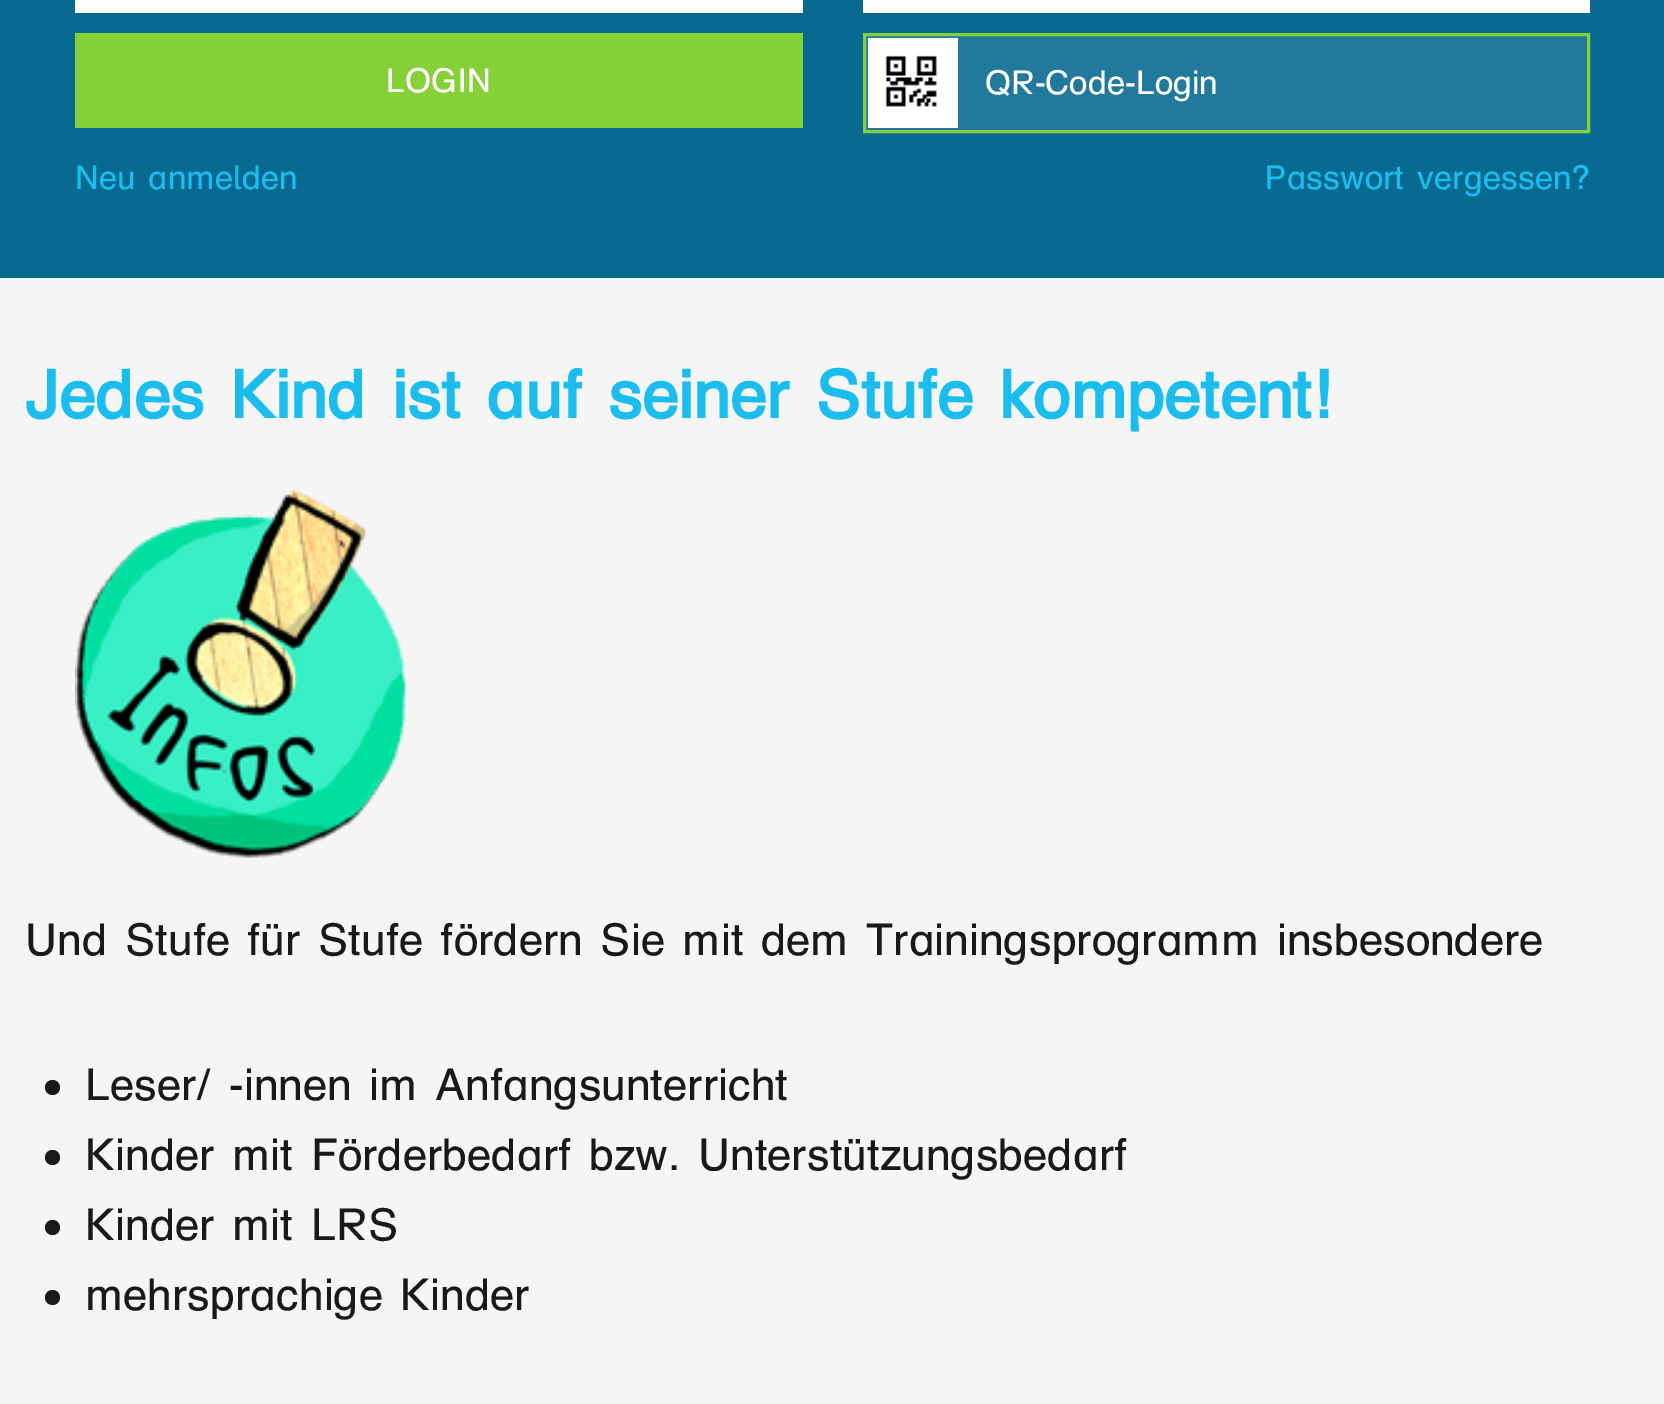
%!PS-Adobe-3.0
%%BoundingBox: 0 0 1664 1404
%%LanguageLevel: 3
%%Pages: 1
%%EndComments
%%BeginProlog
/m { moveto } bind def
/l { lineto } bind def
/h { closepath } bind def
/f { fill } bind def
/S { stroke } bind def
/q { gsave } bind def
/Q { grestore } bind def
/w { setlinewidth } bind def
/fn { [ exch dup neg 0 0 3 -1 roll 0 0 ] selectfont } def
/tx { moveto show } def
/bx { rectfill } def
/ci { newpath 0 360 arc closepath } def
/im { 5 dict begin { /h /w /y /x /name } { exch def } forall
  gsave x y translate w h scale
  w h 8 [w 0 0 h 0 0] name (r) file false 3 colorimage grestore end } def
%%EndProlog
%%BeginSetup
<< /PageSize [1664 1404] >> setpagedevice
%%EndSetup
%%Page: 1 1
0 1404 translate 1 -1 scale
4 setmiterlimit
0.961 setgray
0 0 1664 1404 bx
0.031 0.416 0.569 setrgbcolor
0 0 1664 278 bx
1 setgray
75 0 728 13 bx
863 0 727 13 bx
0.525 0.816 0.22 setrgbcolor
75 33 728 95 bx
/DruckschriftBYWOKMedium-Medium 33.75 fn
1 setgray
(LOGIN) 386 92 tx
0.129 0.475 0.612 setrgbcolor
864.5 34.5 m 1588.5 34.5 l 1588.5 131.5 l 864.5 131.5 l h q f Q
0.525 0.816 0.22 setrgbcolor
3 w
S
1 setgray
868 38 90 90 bx
(image0.raw) 885 55 52 52 im
(QR-Code-Login) 985 94 tx
0.106 0.741 0.937 setrgbcolor
(Neu anmelden) 75 189 tx
(Passwort vergessen?) 1264 189 tx
/DruckschriftBYWOKMedium-Bold 67.5 fn
(Jedes Kind ist auf seiner Stufe kompetent!) 25 418 tx
(image1.raw) 75 490 333 368 im
/DruckschriftBYWOKMedium-Medium 45 fn
0.098 setgray
(Und Stufe für Stufe fördern Sie mit dem Trainingsprogramm insbesondere) 25 955 tx
52.5 1087.5 7.5 ci f
(Leser/ -innen im Anfangsunterricht) 85 1100 tx
52.5 1157.5 7.5 ci f
(Kinder mit Förderbedarf bzw. Unterstützungsbedarf) 85 1170 tx
52.5 1227.5 7.5 ci f
(Kinder mit LRS) 85 1240 tx
52.5 1297.5 7.5 ci f
(mehrsprachige Kinder) 85 1310 tx
showpage
%%EOF
